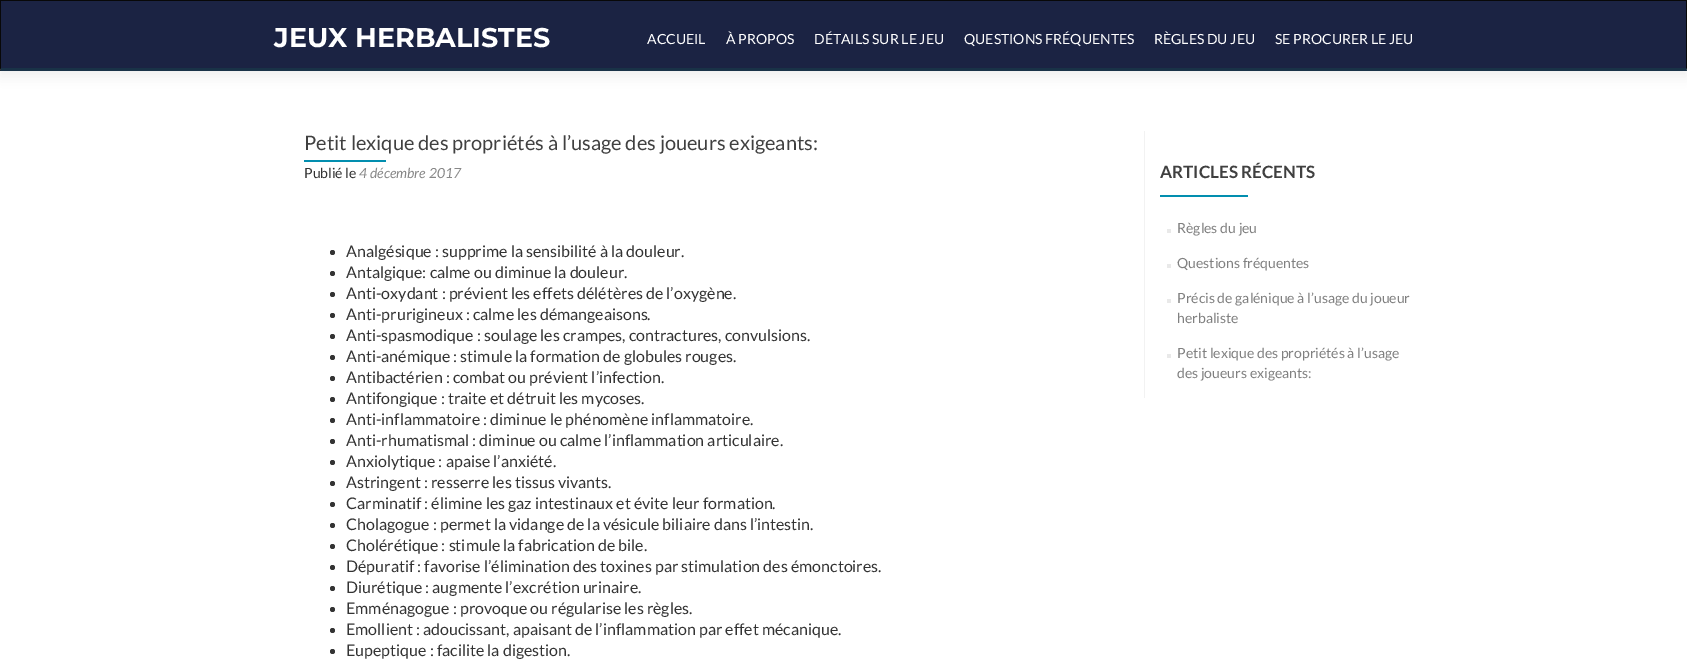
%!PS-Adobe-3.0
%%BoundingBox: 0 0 1687 664
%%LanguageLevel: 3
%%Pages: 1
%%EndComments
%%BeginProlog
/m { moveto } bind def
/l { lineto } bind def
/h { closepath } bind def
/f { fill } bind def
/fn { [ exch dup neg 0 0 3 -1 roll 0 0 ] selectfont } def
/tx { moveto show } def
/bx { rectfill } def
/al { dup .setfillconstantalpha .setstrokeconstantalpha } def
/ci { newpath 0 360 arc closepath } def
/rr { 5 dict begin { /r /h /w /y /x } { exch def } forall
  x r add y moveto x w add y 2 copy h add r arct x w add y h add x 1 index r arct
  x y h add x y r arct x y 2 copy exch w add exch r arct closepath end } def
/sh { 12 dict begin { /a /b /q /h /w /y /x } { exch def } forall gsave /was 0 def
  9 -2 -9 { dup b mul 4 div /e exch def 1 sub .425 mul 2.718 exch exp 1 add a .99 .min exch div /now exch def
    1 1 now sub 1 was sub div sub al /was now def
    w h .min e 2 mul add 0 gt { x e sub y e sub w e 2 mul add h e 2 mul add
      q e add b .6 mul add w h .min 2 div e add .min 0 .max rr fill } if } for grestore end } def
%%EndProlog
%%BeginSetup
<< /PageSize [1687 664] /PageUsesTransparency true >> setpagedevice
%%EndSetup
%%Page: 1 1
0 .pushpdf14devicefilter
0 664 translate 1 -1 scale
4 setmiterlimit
1 setgray
0 0 1687 664 bx
0.196 setgray
0 5 1687 71 0 5.5 0.08 sh
0.106 0.137 0.263 setrgbcolor
1 1 1685 67 bx
0.031 setgray
0 0 1687 1 bx
1687 0 m 1687 71 l 1686 68 l 1686 1 l h f
0.098 0.196 0.278 setrgbcolor
1687 71 m 0 71 l 1 68 l 1686 68 l h f
0.031 setgray
0 71 m 0 0 l 1 1 l 1 68 l h f
/Montserrat-Bold 27 fn
1 setgray
(JEUX HERBALISTES) 274 47 tx
/Lato-Regular 14 fn
(ACCUEIL) 647 44 tx
(À PROPOS) 726 44 tx
(DÉTAILS SUR LE JEU) 814 44 tx
(QUESTIONS FRÉQUENTES) 964 44 tx
(RÈGLES DU JEU) 1154 44 tx
(SE PROCURER LE JEU) 1275 44 tx
/Lato-Regular 20 fn
0.251 setgray
(Petit lexique des propriétés à l’usage des joueurs exigeants:) 304 150 tx
0.008 0.557 0.686 setrgbcolor
304 160 82 2 bx
/Lato-Regular 14 fn
0.2 setgray
(Publié le) 304 178 tx
/Lato-Italic 14 fn
0.533 setgray
(4 décembre 2017) 359 178 tx
0.2 setgray
332.5 252.5 2.5 ci f
/Lato-Regular 16 fn
(Analgésique : supprime la sensibilité à la douleur.) 346 257 tx
332.5 273.5 2.5 ci f
(Antalgique: calme ou diminue la douleur.) 346 278 tx
332.5 294.5 2.5 ci f
(Anti-oxydant : prévient les effets délétères de l’oxygène.) 346 299 tx
332.5 315.5 2.5 ci f
(Anti-prurigineux : calme les démangeaisons.) 346 320 tx
332.5 336.5 2.5 ci f
(Anti-spasmodique : soulage les crampes, contractures, convulsions.) 346 341 tx
332.5 357.5 2.5 ci f
(Anti-anémique : stimule la formation de globules rouges.) 346 362 tx
332.5 378.5 2.5 ci f
(Antibactérien : combat ou prévient l’infection.) 346 383 tx
332.5 399.5 2.5 ci f
(Antifongique : traite et détruit les mycoses.) 346 404 tx
332.5 420.5 2.5 ci f
(Anti-inflammatoire : diminue le phénomène inflammatoire.) 346 425 tx
332.5 441.5 2.5 ci f
(Anti-rhumatismal : diminue ou calme l’inflammation articulaire.) 346 446 tx
332.5 462.5 2.5 ci f
(Anxiolytique : apaise l’anxiété.) 346 467 tx
332.5 483.5 2.5 ci f
(Astringent : resserre les tissus vivants.) 346 488 tx
332.5 504.5 2.5 ci f
(Carminatif : élimine les gaz intestinaux et évite leur formation.) 346 509 tx
332.5 525.5 2.5 ci f
(Cholagogue : permet la vidange de la vésicule biliaire dans l’intestin.) 346 530 tx
332.5 546.5 2.5 ci f
(Cholérétique : stimule la fabrication de bile.) 346 551 tx
332.5 567.5 2.5 ci f
(Dépuratif : favorise l’élimination des toxines par stimulation des émonctoires.) 346 572 tx
332.5 588.5 2.5 ci f
(Diurétique : augmente l’excrétion urinaire.) 346 593 tx
332.5 609.5 2.5 ci f
(Emménagogue : provoque ou régularise les règles.) 346 614 tx
332.5 630.5 2.5 ci f
(Emollient : adoucissant, apaisant de l’inflammation par effet mécanique.) 346 635 tx
332.5 651.5 2.5 ci f
(Eupeptique : facilite la digestion.) 346 656 tx
0.949 setgray
1144 131 1 267 bx
/Lato-Bold 17 fn
0.251 setgray
(ARTICLES RÉCENTS) 1160 178 tx
0.008 0.557 0.686 setrgbcolor
1160 195 88 2 bx
0.914 setgray
1167 229 4 4 bx
/Lato-Regular 14 fn
0.502 setgray
(Règles du jeu) 1177 233 tx
0.914 setgray
1167 264 4 4 bx
0.502 setgray
(Questions fréquentes) 1177 268 tx
0.914 setgray
1167 299 4 4 bx
0.502 setgray
(Précis de galénique à l’usage du joueur) 1177 303 tx
(herbaliste) 1177 323 tx
0.914 setgray
1167 354 4 4 bx
0.502 setgray
(Petit lexique des propriétés à l’usage) 1177 358 tx
(des joueurs exigeants:) 1177 378 tx
.poppdf14devicefilter showpage
%%EOF
